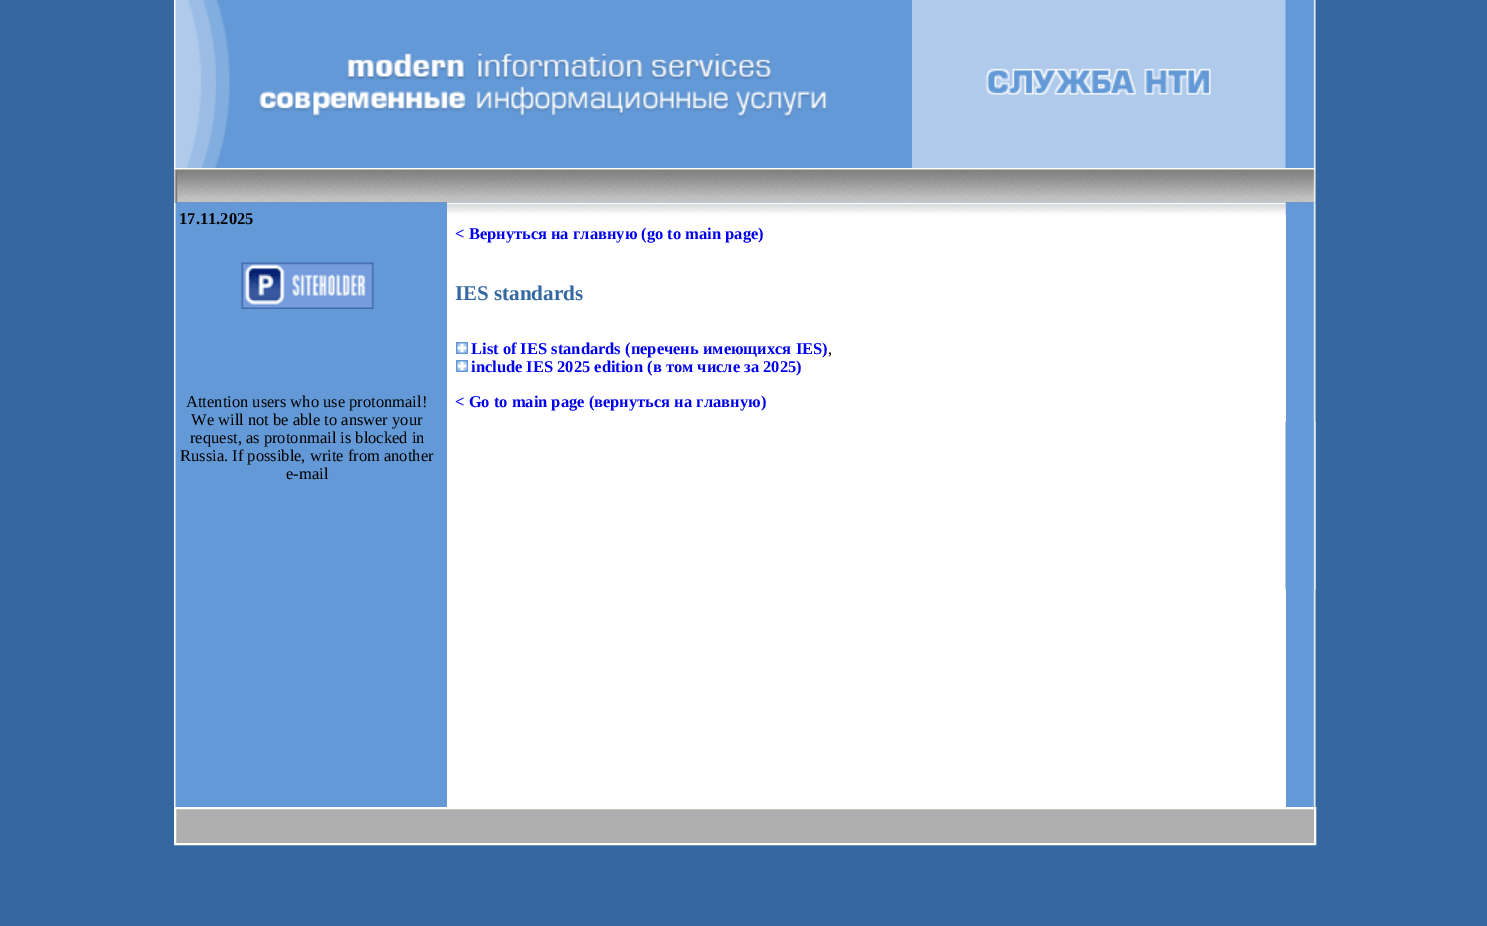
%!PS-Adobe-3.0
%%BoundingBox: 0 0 1487 926
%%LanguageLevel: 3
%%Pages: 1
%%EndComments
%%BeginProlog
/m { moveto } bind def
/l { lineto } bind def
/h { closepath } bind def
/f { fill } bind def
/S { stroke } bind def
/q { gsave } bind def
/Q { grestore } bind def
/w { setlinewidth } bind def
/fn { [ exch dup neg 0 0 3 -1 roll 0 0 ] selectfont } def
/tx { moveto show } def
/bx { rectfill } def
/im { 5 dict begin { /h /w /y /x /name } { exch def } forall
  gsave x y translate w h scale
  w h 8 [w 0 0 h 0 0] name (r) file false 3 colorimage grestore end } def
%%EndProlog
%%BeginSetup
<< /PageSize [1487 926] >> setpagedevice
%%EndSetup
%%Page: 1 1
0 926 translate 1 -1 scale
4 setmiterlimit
0.208 0.404 0.627 setrgbcolor
0 0 1487 926 bx
0.388 0.6 0.843 setrgbcolor
827 0 85 168 bx
(image0.raw) 174 0 653 168 im
0.686 0.792 0.918 setrgbcolor
912 0 374 168 bx
(image1.raw) 985 68 226 27 im
(image2.raw) 1285 0 31 168 im
(image3.raw) 174 168 1142 35 im
(image4.raw) 174 202 273 605 im
/LiberationSerif-Bold 16.5 fn
0 setgray
(17.11.2025) 179 224 tx
(image5.raw) 241 262 133 47 im
/LiberationSerif-Regular 16.5 fn
(Attention users who use protonmail!) 186 407 tx
(We will not be able to answer your) 191 425 tx
(request, as protonmail is blocked in) 190 443 tx
(Russia. If possible, write from another) 180 461 tx
(e-mail) 286 479 tx
1 setgray
447 203 839 12 bx
(image7.raw) 1285 202 31 605 im
(image6.raw) 447 202 839 13 im
447 215 839 592 bx
(image8.raw) 1285 421 31 169 im
/LiberationSerif-Bold 16.5 fn
0 0 0.933 setrgbcolor
(< Вернуться на главную \(go to main page\)) 455 239 tx
/LiberationSerif-Bold 21 fn
0.208 0.404 0.627 setrgbcolor
(IES standards) 455 300 tx
(image9.raw) 456 342 12 12 im
/LiberationSerif-Bold 16.5 fn
0 0 0.933 setrgbcolor
(List of IES standards \(перечень имеющихся IES\)) 471 354 tx
/LiberationSerif-Regular 16.5 fn
0 setgray
(,) 828 354 tx
(image9.raw) 456 360 12 12 im
/LiberationSerif-Bold 16.5 fn
0 0 0.933 setrgbcolor
(include IES 2025 edition \(в том числе за 2025\)) 471 372 tx
(< Go to main page \(вернуться на главную\)) 455 407 tx
0.686 setgray
175 808 m 1315 808 l 1315 844 l 175 844 l h q f Q
1 0.992 0.957 setrgbcolor
2 w
S
showpage
%%EOF
